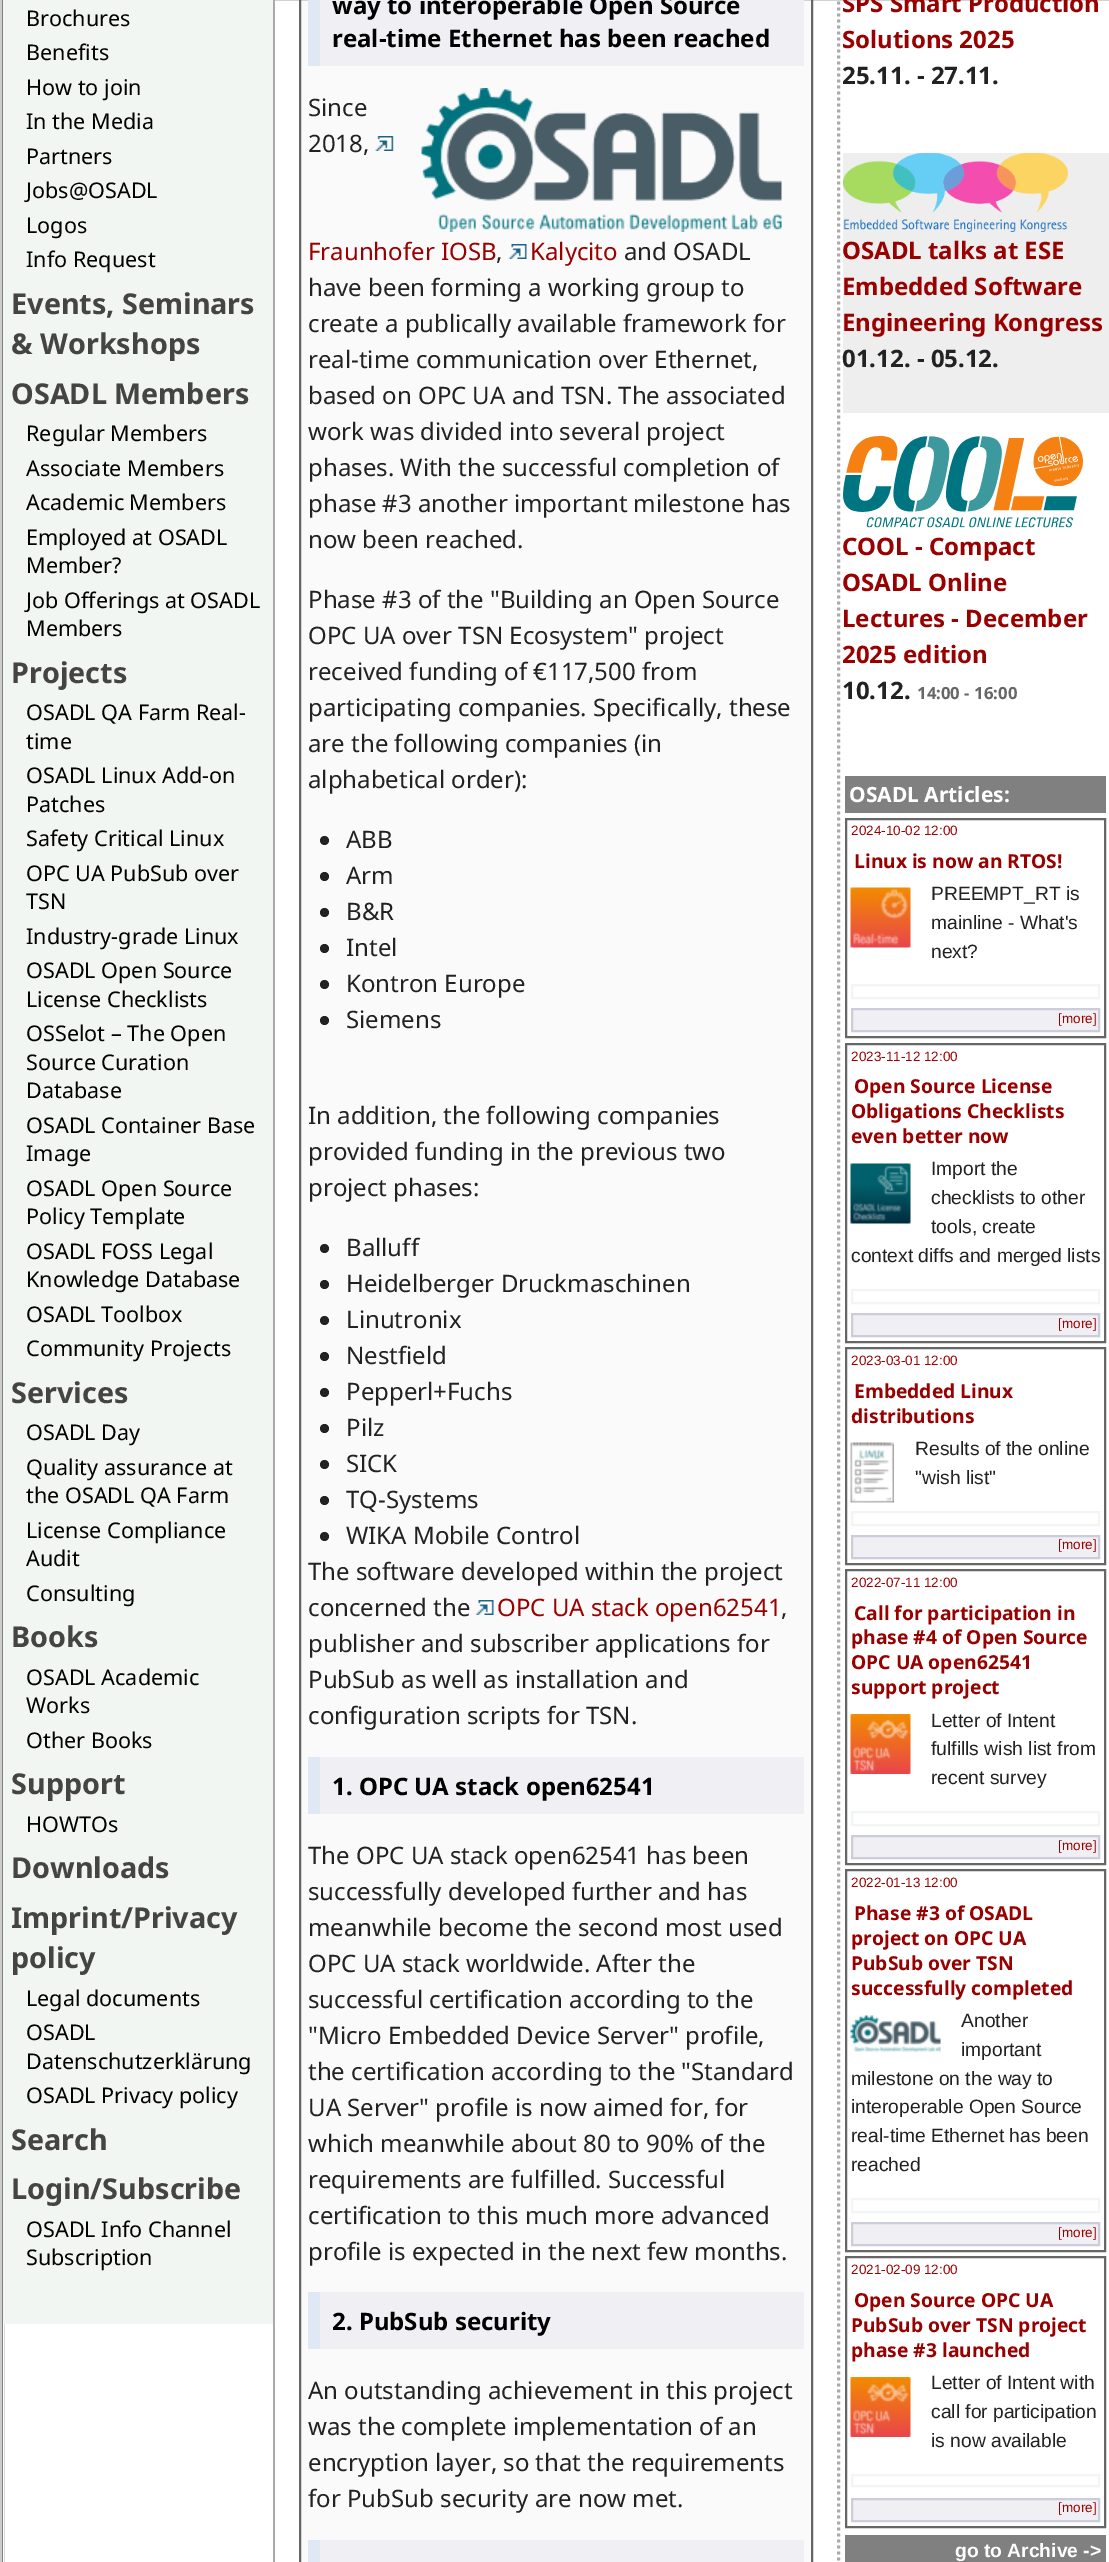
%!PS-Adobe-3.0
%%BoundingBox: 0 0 1109 2562
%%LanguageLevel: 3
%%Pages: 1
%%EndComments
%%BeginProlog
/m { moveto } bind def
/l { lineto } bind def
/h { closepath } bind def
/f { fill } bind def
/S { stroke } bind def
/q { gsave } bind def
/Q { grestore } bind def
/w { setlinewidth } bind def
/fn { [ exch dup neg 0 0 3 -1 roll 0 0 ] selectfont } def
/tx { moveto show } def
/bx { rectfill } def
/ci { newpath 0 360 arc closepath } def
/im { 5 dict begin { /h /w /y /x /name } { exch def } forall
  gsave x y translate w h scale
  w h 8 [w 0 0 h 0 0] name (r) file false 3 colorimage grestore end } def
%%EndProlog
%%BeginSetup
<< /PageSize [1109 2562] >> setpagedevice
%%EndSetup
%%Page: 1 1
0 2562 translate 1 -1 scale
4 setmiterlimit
1 setgray
0 0 1109 2562 bx
0.8 setgray
2 w
1 -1 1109 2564 rectstroke
0.502 setgray
3 -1 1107 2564 rectstroke
1 setgray
3 0 1 2562 bx
0.949 0.965 0.949 setrgbcolor
3 278 270 2046 bx
3 0 270 278 bx
/NotoSans-Regular 21.6 fn
0 setgray
(Brochures) 26 26 tx
(Benefits) 26 60 tx
(How to join) 26 95 tx
(In the Media) 26 129 tx
(Partners) 26 164 tx
(Jobs@OSADL) 26 198 tx
(Logos) 26 233 tx
(Info Request) 26 267 tx
/NotoSans-Bold 28.75 fn
0.267 setgray
(Events, Seminars) 11 314 tx
(& Workshops) 11 354 tx
(OSADL Members) 11 404 tx
/NotoSans-Regular 21.6 fn
0 setgray
(Regular Members) 26 441 tx
(Associate Members) 26 476 tx
(Academic Members) 26 510 tx
(Employed at OSADL) 26 545 tx
(Member?) 26 573 tx
(Job Offerings at OSADL) 26 608 tx
(Members) 26 636 tx
/NotoSans-Bold 28.75 fn
0.267 setgray
(Projects) 11 683 tx
/NotoSans-Regular 21.6 fn
0 setgray
(OSADL QA Farm Real-) 26 720 tx
(time) 26 749 tx
(OSADL Linux Add-on) 26 783 tx
(Patches) 26 812 tx
(Safety Critical Linux) 26 846 tx
(OPC UA PubSub over) 26 881 tx
(TSN) 26 909 tx
(Industry-grade Linux) 26 944 tx
(OSADL Open Source) 26 978 tx
(License Checklists) 26 1007 tx
(OSSelot – The Open) 26 1041 tx
(Source Curation) 26 1070 tx
(Database) 26 1098 tx
(OSADL Container Base) 26 1133 tx
(Image) 26 1161 tx
(OSADL Open Source) 26 1196 tx
(Policy Template) 26 1224 tx
(OSADL FOSS Legal) 26 1259 tx
(Knowledge Database) 26 1287 tx
(OSADL Toolbox) 26 1322 tx
(Community Projects) 26 1356 tx
/NotoSans-Bold 28.75 fn
0.267 setgray
(Services) 11 1403 tx
/NotoSans-Regular 21.6 fn
0 setgray
(OSADL Day) 26 1440 tx
(Quality assurance at) 26 1475 tx
(the OSADL QA Farm) 26 1503 tx
(License Compliance) 26 1538 tx
(Audit) 26 1566 tx
(Consulting) 26 1601 tx
/NotoSans-Bold 28.75 fn
0.267 setgray
(Books) 11 1647 tx
/NotoSans-Regular 21.6 fn
0 setgray
(OSADL Academic) 26 1685 tx
(Works) 26 1713 tx
(Other Books) 26 1748 tx
/NotoSans-Bold 28.75 fn
0.267 setgray
(Support) 11 1794 tx
/NotoSans-Regular 21.6 fn
0 setgray
(HOWTOs) 26 1832 tx
/NotoSans-Bold 28.75 fn
0.267 setgray
(Downloads) 11 1878 tx
(Imprint/Privacy) 11 1928 tx
(policy) 11 1968 tx
/NotoSans-Regular 21.6 fn
0 setgray
(Legal documents) 26 2006 tx
(OSADL) 26 2040 tx
(Datenschutzerklärung) 26 2069 tx
(OSADL Privacy policy) 26 2103 tx
/NotoSans-Bold 28.75 fn
0.267 setgray
(Search) 11 2150 tx
(Login/Subscribe) 11 2199 tx
/NotoSans-Regular 21.6 fn
0 setgray
(OSADL Info Channel) 26 2237 tx
(Subscription) 26 2265 tx
0.667 setgray
3 w
[3 3] 0 setdash
838.5 -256.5 m 838.5 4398 l S
273 0 2 2562 bx
0.98 setgray
300 -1 m 812 -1 l 812 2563 l 300 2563 l h q f Q
0.4 setgray
2 w
[] 0 setdash
S
0.941 0.941 0.957 setrgbcolor
320 0 484 66 bx
0.878 0.906 0.961 setrgbcolor
308 0 12 66 bx
/NotoSans-Bold 24 fn
0 setgray
(way to interoperable Open Source) 332 14 tx
(real-time Ethernet has been reached) 332 47 tx
(image0.raw) 421 88 361 144 im
/NotoSans-Regular 24 fn
0.133 setgray
(Since) 308 116 tx
(2018,) 308 152 tx
(image1.raw) 375 136 19 15 im
0.6 0 0 setrgbcolor
(Fraunhofer IOSB) 308 260 tx
(image2.raw) 508 244 19 15 im
(Kalycito) 530 260 tx
0.133 setgray
(and OSADL) 624 260 tx
(,) 496 260 tx
(have been forming a working group to) 308 296 tx
(create a publically available framework for) 308 332 tx
(real-time communication over Ethernet,) 308 368 tx
(based on OPC UA and TSN. The associated) 308 404 tx
(work was divided into several project) 308 440 tx
(phases. With the successful completion of) 308 476 tx
(phase #3 another important milestone has) 308 512 tx
(now been reached.) 308 548 tx
(Phase #3 of the "Building an Open Source) 308 608 tx
(OPC UA over TSN Ecosystem" project) 308 644 tx
(received funding of €117,500 from) 308 680 tx
(participating companies. Specifically, these) 308 716 tx
(are the following companies \(in) 308 752 tx
(alphabetical order\):) 308 788 tx
324.5 840.5 4.5 ci f
(ABB) 346 848 tx
324.5 876.5 4.5 ci f
(Arm) 346 884 tx
324.5 912.5 4.5 ci f
(B&R) 346 920 tx
324.5 948.5 4.5 ci f
(Intel) 346 956 tx
324.5 984.5 4.5 ci f
(Kontron Europe) 346 992 tx
324.5 1020.5 4.5 ci f
(Siemens) 346 1028 tx
(In addition, the following companies) 308 1124 tx
(provided funding in the previous two) 308 1160 tx
(project phases:) 308 1196 tx
324.5 1248.5 4.5 ci f
(Balluff) 346 1256 tx
324.5 1284.5 4.5 ci f
(Heidelberger Druckmaschinen) 346 1292 tx
324.5 1320.5 4.5 ci f
(Linutronix) 346 1328 tx
324.5 1356.5 4.5 ci f
(Nestfield) 346 1364 tx
324.5 1392.5 4.5 ci f
(Pepperl+Fuchs) 346 1400 tx
324.5 1428.5 4.5 ci f
(Pilz) 346 1436 tx
324.5 1464.5 4.5 ci f
(SICK) 346 1472 tx
324.5 1500.5 4.5 ci f
(TQ-Systems) 346 1508 tx
324.5 1536.5 4.5 ci f
(WIKA Mobile Control) 346 1544 tx
(The software developed within the project) 308 1580 tx
(concerned the) 308 1616 tx
(image2.raw) 475 1600 19 15 im
0.6 0 0 setrgbcolor
(OPC UA stack open62541) 497 1616 tx
0.133 setgray
(,) 781 1616 tx
(publisher and subscriber applications for) 308 1652 tx
(PubSub as well as installation and) 308 1688 tx
(configuration scripts for TSN.) 308 1724 tx
0.941 0.941 0.957 setrgbcolor
320 1757 484 57 bx
0.878 0.906 0.961 setrgbcolor
308 1757 12 57 bx
/NotoSans-Bold 24 fn
0 setgray
(1. OPC UA stack open62541) 332 1795 tx
/NotoSans-Regular 24 fn
0.133 setgray
(The OPC UA stack open62541 has been) 308 1864 tx
(successfully developed further and has) 308 1900 tx
(meanwhile become the second most used) 308 1936 tx
(OPC UA stack worldwide. After the) 308 1972 tx
(successful certification according to the) 308 2008 tx
("Micro Embedded Device Server" profile,) 308 2044 tx
(the certification according to the "Standard) 308 2080 tx
(UA Server" profile is now aimed for, for) 308 2116 tx
(which meanwhile about 80 to 90% of the) 308 2152 tx
(requirements are fulfilled. Successful) 308 2188 tx
(certification to this much more advanced) 308 2224 tx
(profile is expected in the next few months.) 308 2260 tx
0.941 0.941 0.957 setrgbcolor
320 2292 484 57 bx
0.878 0.906 0.961 setrgbcolor
308 2292 12 57 bx
/NotoSans-Bold 24 fn
0 setgray
(2. PubSub security) 332 2330 tx
/NotoSans-Regular 24 fn
0.133 setgray
(An outstanding achievement in this project) 308 2399 tx
(was the complete implementation of an) 308 2435 tx
(encryption layer, so that the requirements) 308 2471 tx
(for PubSub security are now met.) 308 2507 tx
0.941 0.941 0.957 setrgbcolor
320 2540 484 22 bx
0.878 0.906 0.961 setrgbcolor
308 2540 12 22 bx
/NotoSans-Bold 24 fn
0.6 0 0 setrgbcolor
(SPS Smart Production) 842 12 tx
(Solutions 2025) 842 48 tx
0.133 setgray
(25.11. - 27.11.) 842 84 tx
0.933 setgray
843 153 266 260 bx
(image3.raw) 843 153 225 79 im
0.6 0 0 setrgbcolor
(OSADL talks at ESE) 842 259 tx
(Embedded Software) 842 295 tx
(Engineering Kongress) 842 331 tx
0.133 setgray
(01.12. - 05.12.) 842 367 tx
(image4.raw) 843 436 240 92 im
0.6 0 0 setrgbcolor
(COOL - Compact) 842 555 tx
(OSADL Online) 842 591 tx
(Lectures - December) 842 627 tx
(2025 edition) 842 663 tx
0.133 setgray
(10.12.) 842 699 tx
/NotoSans-Bold 16.75 fn
0.4 setgray
(14:00 - 16:00) 917 699 tx
0.502 setgray
845 776 261 37 bx
/NotoSans-Bold 21 fn
1 setgray
(OSADL Articles:) 849 802 tx
0.4 setgray
846 819 259 218 rectstroke
/LiberationSans-Regular 13.5 fn
0.6 0 0 setrgbcolor
(2024-10-02 12:00) 851 835 tx
/NotoSans-Bold 19.25 fn
(Linux is now an RTOS!) 854 868 tx
(image5.raw) 850 887 61 61 im
/LiberationSans-Regular 19.25 fn
0.133 setgray
(PREEMPT_RT is) 931 900 tx
(mainline - What's) 931 929 tx
(next?) 931 958 tx
0.949 0.965 0.949 setrgbcolor
852 985 247 13 rectstroke
0.941 0.941 0.957 setrgbcolor
852 1009 m 1099 1009 l 1099 1031 l 852 1031 l h q f Q
0.8 0.8 0.867 setrgbcolor
S
/LiberationSans-Regular 13.5 fn
0.6 0 0 setrgbcolor
([more]) 1058 1023 tx
0.4 setgray
846 1044 259 298 rectstroke
0.6 0 0 setrgbcolor
(2023-11-12 12:00) 851 1061 tx
/NotoSans-Bold 19.25 fn
(Open Source License) 854 1093 tx
(Obligations Checklists) 851 1118 tx
(even better now) 851 1143 tx
/LiberationSans-Regular 19.25 fn
0.133 setgray
(Import the) 931 1175 tx
(checklists to other) 931 1204 tx
(tools, create) 931 1233 tx
(context diffs and merged lists) 851 1262 tx
(image6.raw) 850 1163 61 61 im
0.949 0.965 0.949 setrgbcolor
852 1290 247 13 rectstroke
0.941 0.941 0.957 setrgbcolor
852 1314 m 1099 1314 l 1099 1336 l 852 1336 l h q f Q
0.8 0.8 0.867 setrgbcolor
S
/LiberationSans-Regular 13.5 fn
0.6 0 0 setrgbcolor
([more]) 1058 1328 tx
0.4 setgray
846 1348 259 216 rectstroke
0.6 0 0 setrgbcolor
(2023-03-01 12:00) 851 1365 tx
/NotoSans-Bold 19.25 fn
(Embedded Linux) 854 1398 tx
(distributions) 851 1423 tx
(image7.raw) 850 1442 44 61 im
/LiberationSans-Regular 19.25 fn
0.133 setgray
(Results of the online) 915 1455 tx
("wish list") 915 1484 tx
0.949 0.965 0.949 setrgbcolor
852 1512 247 13 rectstroke
0.941 0.941 0.957 setrgbcolor
852 1536 m 1099 1536 l 1099 1558 l 852 1558 l h q f Q
0.8 0.8 0.867 setrgbcolor
S
/LiberationSans-Regular 13.5 fn
0.6 0 0 setrgbcolor
([more]) 1058 1549 tx
0.4 setgray
846 1570 259 294 rectstroke
0.6 0 0 setrgbcolor
(2022-07-11 12:00) 851 1587 tx
/NotoSans-Bold 19.25 fn
(Call for participation in) 854 1620 tx
(phase #4 of Open Source) 851 1644 tx
(OPC UA open62541) 851 1669 tx
(support project) 851 1694 tx
(image8.raw) 850 1714 61 60 im
/LiberationSans-Regular 19.25 fn
0.133 setgray
(Letter of Intent) 931 1727 tx
(fulfills wish list from) 931 1755 tx
(recent survey) 931 1784 tx
0.949 0.965 0.949 setrgbcolor
852 1812 247 13 rectstroke
0.941 0.941 0.957 setrgbcolor
852 1836 m 1099 1836 l 1099 1858 l 852 1858 l h q f Q
0.8 0.8 0.867 setrgbcolor
S
/LiberationSans-Regular 13.5 fn
0.6 0 0 setrgbcolor
([more]) 1058 1850 tx
0.4 setgray
846 1870 259 381 rectstroke
0.6 0 0 setrgbcolor
(2022-01-13 12:00) 851 1887 tx
/NotoSans-Bold 19.25 fn
(Phase #3 of OSADL) 854 1920 tx
(project on OPC UA) 851 1945 tx
(PubSub over TSN) 851 1970 tx
(successfully completed) 851 1995 tx
/LiberationSans-Regular 19.25 fn
0.133 setgray
(Another) 961 2027 tx
(important) 961 2056 tx
(milestone on the way to) 851 2085 tx
(interoperable Open Source) 851 2113 tx
(real-time Ethernet has been) 851 2142 tx
(reached) 851 2171 tx
(image9.raw) 850 2015 91 37 im
0.949 0.965 0.949 setrgbcolor
852 2199 247 13 rectstroke
0.941 0.941 0.957 setrgbcolor
852 2223 m 1099 2223 l 1099 2245 l 852 2245 l h q f Q
0.8 0.8 0.867 setrgbcolor
S
/LiberationSans-Regular 13.5 fn
0.6 0 0 setrgbcolor
([more]) 1058 2237 tx
0.4 setgray
846 2257 259 270 rectstroke
0.6 0 0 setrgbcolor
(2021-02-09 12:00) 851 2274 tx
/NotoSans-Bold 19.25 fn
(Open Source OPC UA) 854 2307 tx
(PubSub over TSN project) 851 2332 tx
(phase #3 launched) 851 2357 tx
(image8.raw) 850 2377 61 60 im
/LiberationSans-Regular 19.25 fn
0.133 setgray
(Letter of Intent with) 931 2389 tx
(call for participation) 931 2418 tx
(is now available) 931 2447 tx
0.949 0.965 0.949 setrgbcolor
852 2475 247 11 rectstroke
0.941 0.941 0.957 setrgbcolor
852 2499 m 1099 2499 l 1099 2521 l 852 2521 l h q f Q
0.8 0.8 0.867 setrgbcolor
S
/LiberationSans-Regular 13.5 fn
0.6 0 0 setrgbcolor
([more]) 1058 2512 tx
0.502 setgray
845 2535 261 27 bx
/LiberationSans-Bold 19.25 fn
1 setgray
(go to Archive ->) 955 2557 tx
showpage
%%EOF
